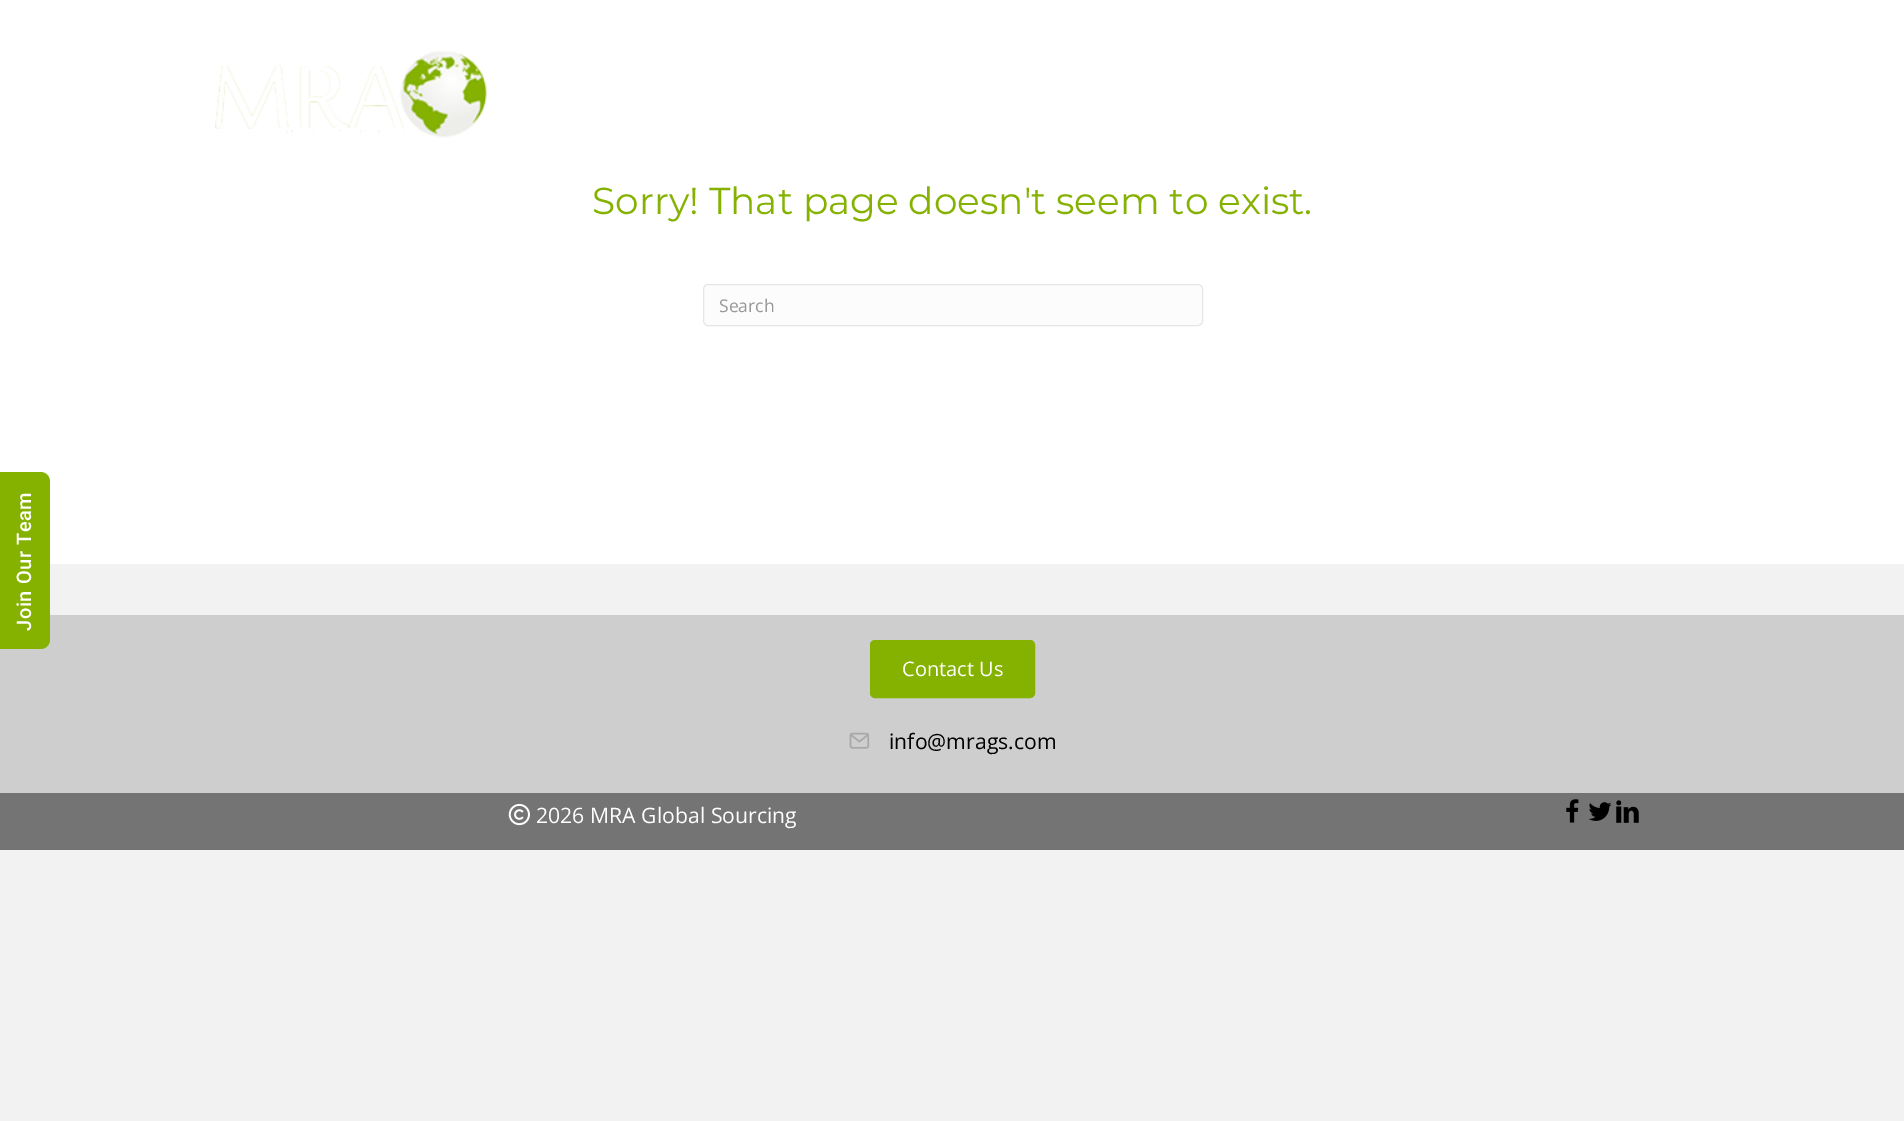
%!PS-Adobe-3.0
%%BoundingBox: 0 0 1904 1121
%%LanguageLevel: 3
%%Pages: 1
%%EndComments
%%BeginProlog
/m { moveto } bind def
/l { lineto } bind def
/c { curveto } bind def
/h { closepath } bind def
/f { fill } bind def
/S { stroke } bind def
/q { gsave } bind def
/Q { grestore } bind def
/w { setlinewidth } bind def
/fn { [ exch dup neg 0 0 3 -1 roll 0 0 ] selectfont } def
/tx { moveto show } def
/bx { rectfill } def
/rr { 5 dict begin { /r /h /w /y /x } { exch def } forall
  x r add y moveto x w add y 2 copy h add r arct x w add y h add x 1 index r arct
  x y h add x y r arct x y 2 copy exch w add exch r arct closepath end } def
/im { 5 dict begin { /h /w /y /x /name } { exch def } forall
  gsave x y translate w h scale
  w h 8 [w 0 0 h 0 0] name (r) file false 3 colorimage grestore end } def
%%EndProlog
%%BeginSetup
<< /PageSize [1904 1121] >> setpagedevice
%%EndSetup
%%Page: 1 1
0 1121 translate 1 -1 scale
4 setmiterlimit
0.949 setgray
0 0 1904 1121 bx
1 setgray
0 0 1904 564 bx
0.808 setgray
0 615 1904 178 bx
0.522 0.698 0 setrgbcolor
0 649 m 0 472 l 40 472 l 46 472 50 476 50 482 c 50 639 l 50 645 46 649 40 649 c h f
/Roboto-Medium 20 fn
1 setgray
q 31 631 translate -90 rotate 0 0 m 0.6 0 (Join Our Team) ashow Q
(image0.raw) 215 51 272 87 im
/Montserrat-Thin 37.5 fn
0.522 0.698 0 setrgbcolor
(Sorry! That page doesn't seem to exist.) 592 214 tx
0.988 setgray
703.5 284.5 499 41 4.5 rr q f Q
0.902 setgray
S
/OpenSans-Regular 17.5 fn
0.592 setgray
(Search) 719 312 tx
0.522 0.698 0 setrgbcolor
871.5 641.5 162 55 3.5 rr q f Q
3 w
S
/OpenSans-Regular 20 fn
1 setgray
(Contact Us) 902 676 tx
(image1.raw) 849 732 21 17 im
/OpenSans-Regular 21.25 fn
0 setgray
(info@mrags.com) 889 749 tx
0.455 setgray
0 793 1904 57 bx
(image2.raw) 508 803 22 23 im
1 setgray
(2026 MRA Global Sourcing) 536 823 tx
(image3.raw) 1566 799 13 24 im
(image4.raw) 1588 802 24 19 im
(image5.raw) 1616 800 23 23 im
showpage
%%EOF
